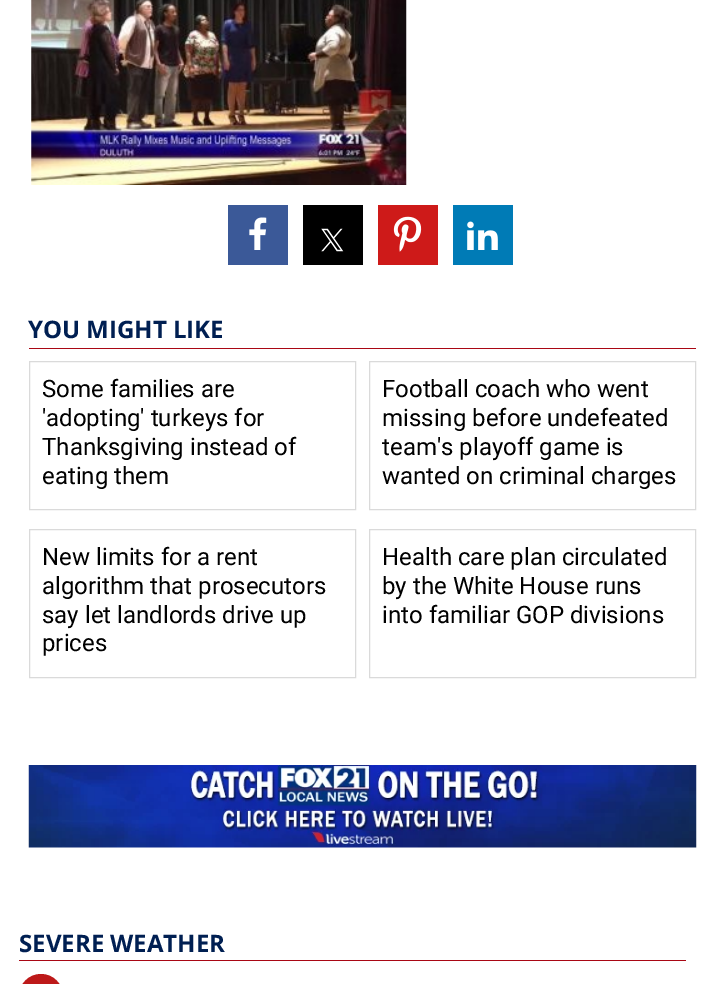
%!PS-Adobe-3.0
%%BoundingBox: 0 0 723 984
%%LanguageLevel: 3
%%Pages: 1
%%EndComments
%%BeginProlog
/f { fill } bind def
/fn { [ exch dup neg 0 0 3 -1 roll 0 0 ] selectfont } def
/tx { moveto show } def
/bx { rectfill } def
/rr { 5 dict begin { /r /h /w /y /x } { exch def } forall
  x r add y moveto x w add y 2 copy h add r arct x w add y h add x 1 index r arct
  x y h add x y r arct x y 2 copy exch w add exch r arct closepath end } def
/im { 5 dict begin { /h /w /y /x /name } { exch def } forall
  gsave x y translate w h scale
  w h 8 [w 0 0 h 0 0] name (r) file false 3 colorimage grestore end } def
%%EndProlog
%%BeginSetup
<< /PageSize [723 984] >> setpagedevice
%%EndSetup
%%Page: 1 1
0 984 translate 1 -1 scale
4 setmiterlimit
1 setgray
0 0 723 984 bx
(image0.raw) 31 0 376 185 im
0.231 0.349 0.596 setrgbcolor
228 205 60 60 bx
(image1.raw) 249 217 18 33 im
0 setgray
303 205 60 60 bx
(image2.raw) 321 228 23 24 im
0.808 0.102 0.098 setrgbcolor
378 205 60 60 bx
(image3.raw) 393 216 29 36 im
0 0.482 0.714 setrgbcolor
453 205 60 60 bx
(image4.raw) 467 221 31 29 im
0.663 0.027 0.078 setrgbcolor
29 348 667 1 bx
/OpenSans-Bold 24 fn
0 0.122 0.322 setrgbcolor
(YOU MIGHT LIKE) 28 338 tx
0.855 setgray
29.5 361.5 326 148 rectstroke
/Roboto-Regular 24 fn
0 setgray
(Some families are) 42 397 tx
('adopting' turkeys for) 42 426 tx
(Thanksgiving instead of) 42 455 tx
(eating them) 42 484 tx
0.855 setgray
369.5 361.5 326 148 rectstroke
0 setgray
(Football coach who went) 382 397 tx
(missing before undefeated) 382 426 tx
(team's playoff game is) 382 455 tx
(wanted on criminal charges) 382 484 tx
0.855 setgray
29.5 529.5 326 148 rectstroke
0 setgray
(New limits for a rent) 42 565 tx
(algorithm that prosecutors) 42 594 tx
(say let landlords drive up) 42 623 tx
(prices) 42 651 tx
0.855 setgray
369.5 529.5 326 148 rectstroke
0 setgray
(Health care plan circulated) 382 565 tx
(by the White House runs) 382 594 tx
(into familiar GOP divisions) 382 623 tx
(image5.raw) 28 765 669 83 im
0.663 0.027 0.078 setrgbcolor
19 960 667 1 bx
/OpenSans-Bold 24 fn
0 0.122 0.322 setrgbcolor
(SEVERE WEATHER) 19 952 tx
0.741 0.098 0.098 setrgbcolor
19 974 44 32 22 rr f
showpage
%%EOF
